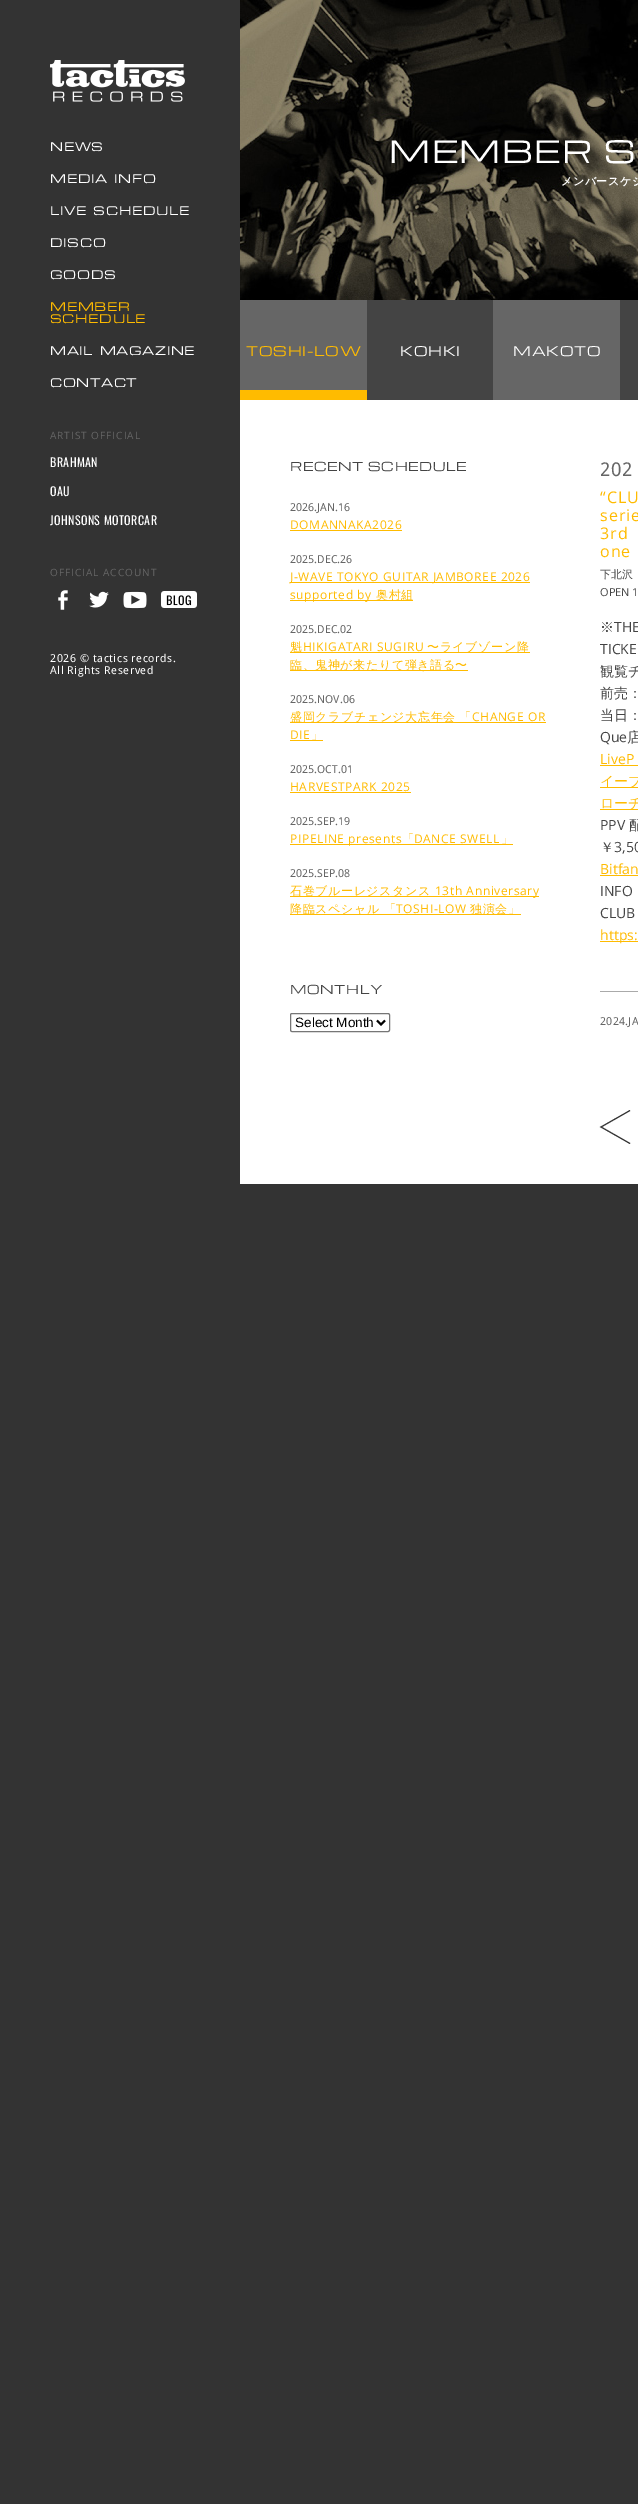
%!PS-Adobe-3.0
%%BoundingBox: 0 0 638 2504
%%LanguageLevel: 3
%%Pages: 1
%%EndComments
%%BeginProlog
/m { moveto } bind def
/l { lineto } bind def
/S { stroke } bind def
/w { setlinewidth } bind def
/fn { [ exch dup neg 0 0 3 -1 roll 0 0 ] selectfont } def
/tx { moveto show } def
/bx { rectfill } def
/rr { 5 dict begin { /r /h /w /y /x } { exch def } forall
  x r add y moveto x w add y 2 copy h add r arct x w add y h add x 1 index r arct
  x y h add x y r arct x y 2 copy exch w add exch r arct closepath end } def
/im { 5 dict begin { /h /w /y /x /name } { exch def } forall
  gsave x y translate w h scale
  w h 8 [w 0 0 h 0 0] name (r) file false 3 colorimage grestore end } def
%%EndProlog
%%BeginSetup
<< /PageSize [638 2504] >> setpagedevice
%%EndSetup
%%Page: 1 1
0 2504 translate 1 -1 scale
4 setmiterlimit
0.2 setgray
0 0 638 2504 bx
(image0.raw) 50 60 135 42 im
/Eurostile-Regular 12 fn
1 setgray
50 151 m 0.6 0 (NEWS) ashow
50 183 m 0.6 0 (MEDIA INFO) ashow
50 215 m 0.6 0 (LIVE SCHEDULE) ashow
50 247 m 0.6 0 (DISCO) ashow
50 279 m 0.6 0 (GOODS) ashow
1 0.733 0 setrgbcolor
50 311 m 0.6 0 (MEMBER) ashow
50 323 m 0.6 0 (SCHEDULE) ashow
1 setgray
50 355 m 0.6 0 (MAIL MAGAZINE) ashow
50 387 m 0.6 0 (CONTACT) ashow
/OpenSans-Regular 10 fn
0.4 setgray
50 439 m 1 0 (ARTIST OFFICIAL) ashow
/Oswald-Regular 12 fn
1 setgray
50 467 m 0.4 0 (BRAHMAN) ashow
50 496 m 0.4 0 (OAU) ashow
50 525 m 0.4 0 (JOHNSONS MOTORCAR) ashow
/OpenSans-Regular 10 fn
0.4 setgray
50 576 m 1 0 (OFFICIAL ACCOUNT) ashow
(image1.raw) 58 590 10 20 im
(image2.raw) 89 591 20 17 im
(image3.raw) 123 591 24 18 im
(image4.raw) 161 591 36 17 im
/DroidSans-Regular 11 fn
1 setgray
50 662 m 0.55 0 (2026 © tactics records.) ashow
50 674 m 0.55 0 (All Rights Reserved) ashow
(image5.raw) 240 0 398 300 im
/Michroma-Regular 30 fn
389 163 m 1.5 0 (MEMBER S) ashow
/WenQuanYiZenHei-Bold 11 fn
561 185 m 0.55 0 (メンバースケジ) ashow
0.4 setgray
240 300 127 90 bx
/Michroma-Regular 13 fn
1 0.733 0 setrgbcolor
246 356 m 0.75 0 (TOSHI-LOW) ashow
240 390 127 10 bx
0.267 setgray
367 300 126 100 bx
1 setgray
400 356 m 0.75 0 (KOHKI) ashow
0.4 setgray
493 300 127 100 bx
1 setgray
513 356 m 0.75 0 (MAKOTO) ashow
0.267 setgray
620 300 18 100 bx
1 setgray
240 400 398 784 bx
/Michroma-Regular 12 fn
0.267 setgray
290 471 m 0.6 0 (RECENT SCHEDULE) ashow
/DroidSans-Regular 11 fn
0.4 setgray
(2026.JAN.16) 290 511 tx
/OpenSans-Regular 12 fn
1 0.733 0 setrgbcolor
290 529 m 0.6 0 (DOMANNAKA2026) ashow
290 530 112 1 bx
/DroidSans-Regular 11 fn
0.4 setgray
(2025.DEC.26) 290 563 tx
1 0.733 0 setrgbcolor
290 582 240 1 bx
/OpenSans-Regular 12 fn
290 581 m 0.6 0 (J-WAVE TOKYO GUITAR JAMBOREE 2026) ashow
290 600 123 1 bx
290 599 m 0.6 0 (supported by) ashow
/WenQuanYiZenHei-Medium 12 fn
376 599 m 0.6 0 (奥村組) ashow
/DroidSans-Regular 11 fn
0.4 setgray
(2025.DEC.02) 290 633 tx
1 0.733 0 setrgbcolor
290 652 240 1 bx
/WenQuanYiZenHei-Medium 12 fn
290 651 m 0.6 0 (魁) ashow
/OpenSans-Regular 12 fn
303 651 m 0.6 0 (HIKIGATARI SUGIRU) ashow
/WenQuanYiZenHei-Medium 12 fn
427 651 m 0.6 0 (〜ライブゾーン降) ashow
290 670 178 1 bx
290 669 m 0.6 0 (臨、鬼神が来たりて弾き語る〜) ashow
/DroidSans-Regular 11 fn
0.4 setgray
(2025.NOV.06) 290 703 tx
1 0.733 0 setrgbcolor
290 722 256 1 bx
/WenQuanYiZenHei-Medium 12 fn
290 721 m 0.6 0 (盛岡クラブチェンジ大忘年会) ashow
459 721 m 0.6 0 (「) ashow
/OpenSans-Regular 12 fn
472 721 m 0.6 0 (CHANGE OR) ashow
290 739 m 0.6 0 (DIE) ashow
290 740 33 1 bx
/WenQuanYiZenHei-Medium 12 fn
311 739 m 0.6 0 (」) ashow
/DroidSans-Regular 11 fn
0.4 setgray
(2025.OCT.01) 290 773 tx
/OpenSans-Regular 12 fn
1 0.733 0 setrgbcolor
290 791 m 0.6 0 (HARVESTPARK 2025) ashow
290 792 121 1 bx
/DroidSans-Regular 11 fn
0.4 setgray
(2025.SEP.19) 290 825 tx
1 0.733 0 setrgbcolor
290 844 223 1 bx
/OpenSans-Regular 12 fn
290 843 m 0.6 0 (PIPELINE presents) ashow
/WenQuanYiZenHei-Medium 12 fn
402 843 m 0.6 0 (「) ashow
/OpenSans-Regular 12 fn
414 843 m 0.6 0 (DANCE SWELL) ashow
/WenQuanYiZenHei-Medium 12 fn
501 843 m 0.6 0 (」) ashow
/DroidSans-Regular 11 fn
0.4 setgray
(2025.SEP.08) 290 877 tx
1 0.733 0 setrgbcolor
290 896 249 1 bx
/WenQuanYiZenHei-Medium 12 fn
290 895 m 0.6 0 (石巻ブルーレジスタンス) ashow
/OpenSans-Regular 12 fn
435 895 m 0.6 0 (13th Anniversary) ashow
290 914 231 1 bx
/WenQuanYiZenHei-Medium 12 fn
290 913 m 0.6 0 (降臨スペシャル 「) ashow
/OpenSans-Regular 12 fn
396 913 m 0.6 0 (TOSHI-LOW) ashow
/WenQuanYiZenHei-Medium 12 fn
470 913 m 0.6 0 (独演会」) ashow
/Michroma-Regular 12 fn
0.267 setgray
290 994 m 0.6 0 (MONTHLY) ashow
0.463 setgray
290.5 1013.5 99 18 1.5 rr S
0 setgray
2 w
377 1020.5 m 381 1024.5 l 385 1020.5 l S
/LiberationSans-Regular 13.5 fn
(Select Month) 295 1027 tx
/DroidSans-Regular 19 fn
0.4 setgray
600 476 m 0.5 0 (202) ashow
/OpenSans-Regular 16 fn
1 0.733 0 setrgbcolor
600 503 m 1 0 (“CLU) ashow
600 521 m 1 0 (serie) ashow
600 539 m 1 0 (3rd) ashow
600 557 m 1 0 (one) ashow
/WenQuanYiZenHei-Medium 11 fn
0.267 setgray
(下北沢) 600 578 tx
/OpenSans-Regular 11 fn
(OPEN 1) 600 596 tx
/WenQuanYiZenHei-Medium 14 fn
(※) 600 632 tx
/OpenSans-Regular 14 fn
(THE) 614 632 tx
(TICKE) 600 654 tx
/WenQuanYiZenHei-Medium 14 fn
(観覧チ) 600 676 tx
(前売：) 600 698 tx
(当日：) 600 720 tx
/OpenSans-Regular 14 fn
(Que) 600 742 tx
/WenQuanYiZenHei-Medium 14 fn
(店) 627 742 tx
/OpenSans-Regular 14 fn
1 0.733 0 setrgbcolor
(LiveP) 600 764 tx
600 765 38 1 bx
600 787 38 1 bx
/WenQuanYiZenHei-Medium 14 fn
(イープ) 600 786 tx
600 809 38 1 bx
(ローチ) 600 808 tx
/OpenSans-Regular 14 fn
0.267 setgray
(PPV) 600 830 tx
/WenQuanYiZenHei-Medium 14 fn
(配) 629 830 tx
(￥) 600 852 tx
/OpenSans-Regular 14 fn
(3,50) 614 852 tx
1 0.733 0 setrgbcolor
(Bitfan) 600 874 tx
600 875 38 1 bx
0.267 setgray
(INFO) 600 896 tx
(CLUB) 600 918 tx
1 0.733 0 setrgbcolor
600 941 38 1 bx
(https:) 600 940 tx
0.667 setgray
600 991 38 1 bx
/DroidSans-Regular 11 fn
0.4 setgray
600 1025 m 0.25 0 (2024.JA) ashow
0.2 setgray
1 w
630 1110.5 m 601 1127 l 630 1143.5 l S
showpage
%%EOF
